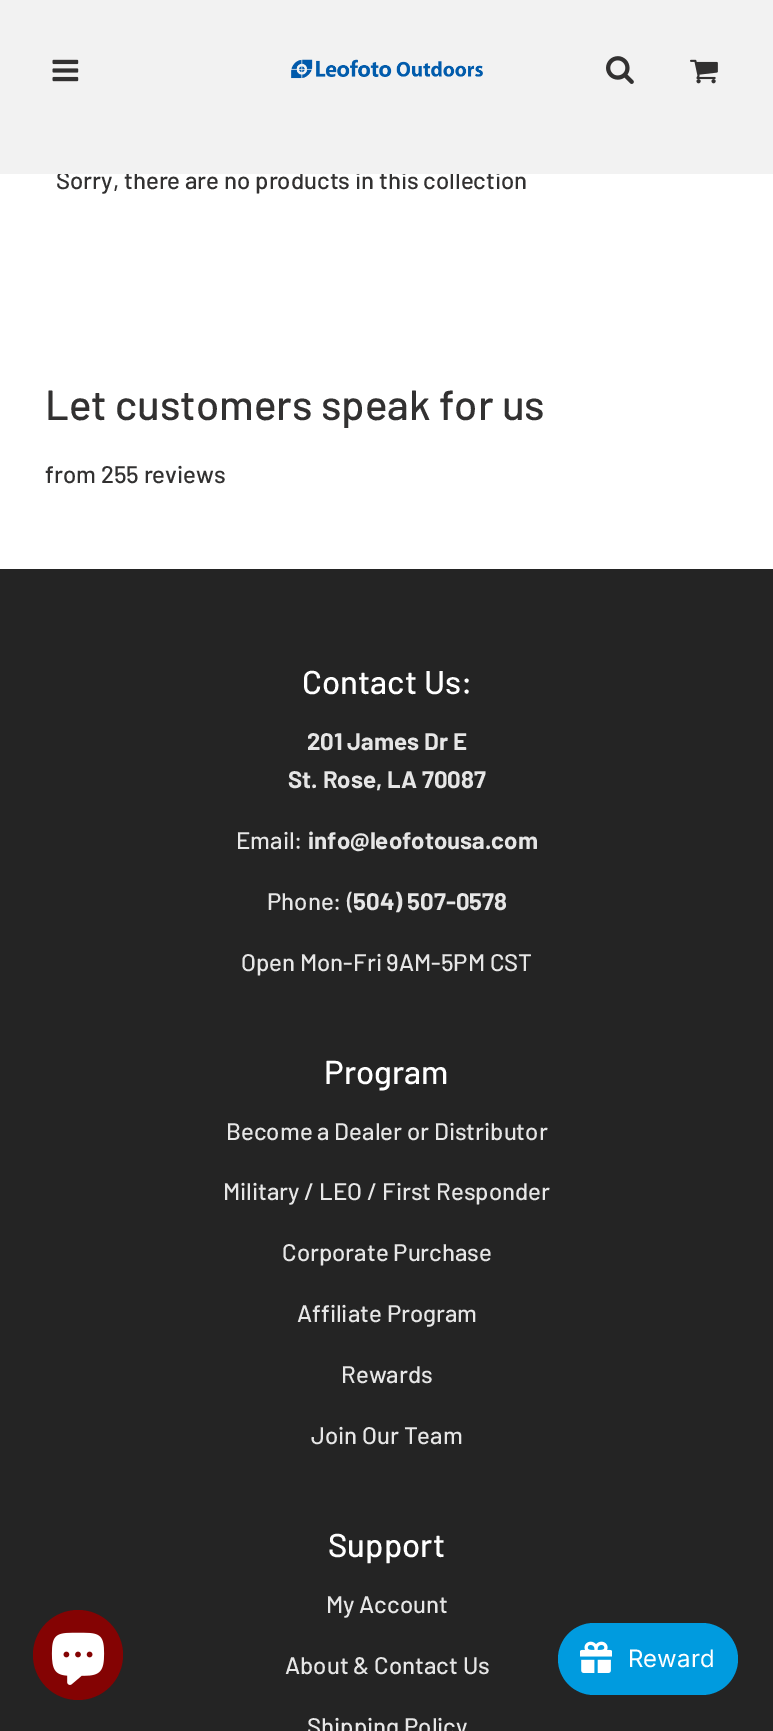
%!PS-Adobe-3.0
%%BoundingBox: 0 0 773 1731
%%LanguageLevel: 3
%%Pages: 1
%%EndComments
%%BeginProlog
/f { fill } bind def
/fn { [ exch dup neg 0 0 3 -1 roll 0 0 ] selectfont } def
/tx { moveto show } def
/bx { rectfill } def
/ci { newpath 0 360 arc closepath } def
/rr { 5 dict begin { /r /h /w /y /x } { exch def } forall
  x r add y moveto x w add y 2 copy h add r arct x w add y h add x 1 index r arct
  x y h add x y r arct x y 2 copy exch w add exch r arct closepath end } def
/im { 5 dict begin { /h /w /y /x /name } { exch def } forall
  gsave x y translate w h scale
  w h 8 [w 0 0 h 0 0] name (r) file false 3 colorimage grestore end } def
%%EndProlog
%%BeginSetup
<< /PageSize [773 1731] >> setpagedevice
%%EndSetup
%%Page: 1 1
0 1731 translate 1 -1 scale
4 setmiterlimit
1 setgray
0 0 773 1731 bx
/Barlow-Medium 24 fn
0.196 0.192 0.192 setrgbcolor
(Sorry, there are no products in this collection) 56 189 tx
0.949 setgray
0 0 773 174 bx
(image0.raw) 52 59 27 23 im
(image1.raw) 291 59 192 20 im
(image2.raw) 606 56 28 28 im
(image3.raw) 690 59 28 25 im
/Barlow-Medium 42 fn
0.196 0.192 0.192 setrgbcolor
(Let customers speak for us) 45 420 tx
/Barlow-Medium 24 fn
(from 255 reviews) 45 483 tx
0.141 setgray
0 569 773 1162 bx
0.518 0.012 0.012 setrgbcolor
78 1655 45 ci f
(image4.raw) 51 1632 54 53 im
/Barlow-Medium 33 fn
1 setgray
(Contact Us:) 302 694 tx
/Barlow-Bold 24 fn
0.902 setgray
(201 James Dr E) 307 750 tx
(St. Rose, LA 70087) 288 788 tx
/Barlow-Medium 24 fn
(Email:) 236 849 tx
/Barlow-Bold 24 fn
(info@leofotousa.com) 308 849 tx
/Barlow-Medium 24 fn
(Phone: \() 267 910 tx
/Barlow-Bold 24 fn
(504\) 507-0578) 353 910 tx
/Barlow-Medium 24 fn
(Open Mon-Fri 9AM-5PM CST) 241 971 tx
/Barlow-Medium 33 fn
1 setgray
(Program) 324 1084 tx
/Barlow-Medium 24 fn
0.902 setgray
(Become a Dealer or Distributor) 226 1140 tx
(Military / LEO / First Responder) 223 1200 tx
(Corporate Purchase) 282 1261 tx
(Affiliate Program) 297 1322 tx
(Rewards) 341 1383 tx
(Join Our Team) 311 1444 tx
/Barlow-Medium 33 fn
1 setgray
(Support) 328 1557 tx
/Barlow-Medium 24 fn
0.902 setgray
(My Account) 326 1613 tx
(About & Contact Us) 285 1674 tx
(Shipping Policy) 307 1735 tx
0 0.608 0.875 setrgbcolor
558 1623 180 72 36 rr f
(image5.raw) 580 1641 32 32 im
/Inter-Regular 24 fn
1 setgray
(Reward) 628 1667 tx
showpage
%%EOF
